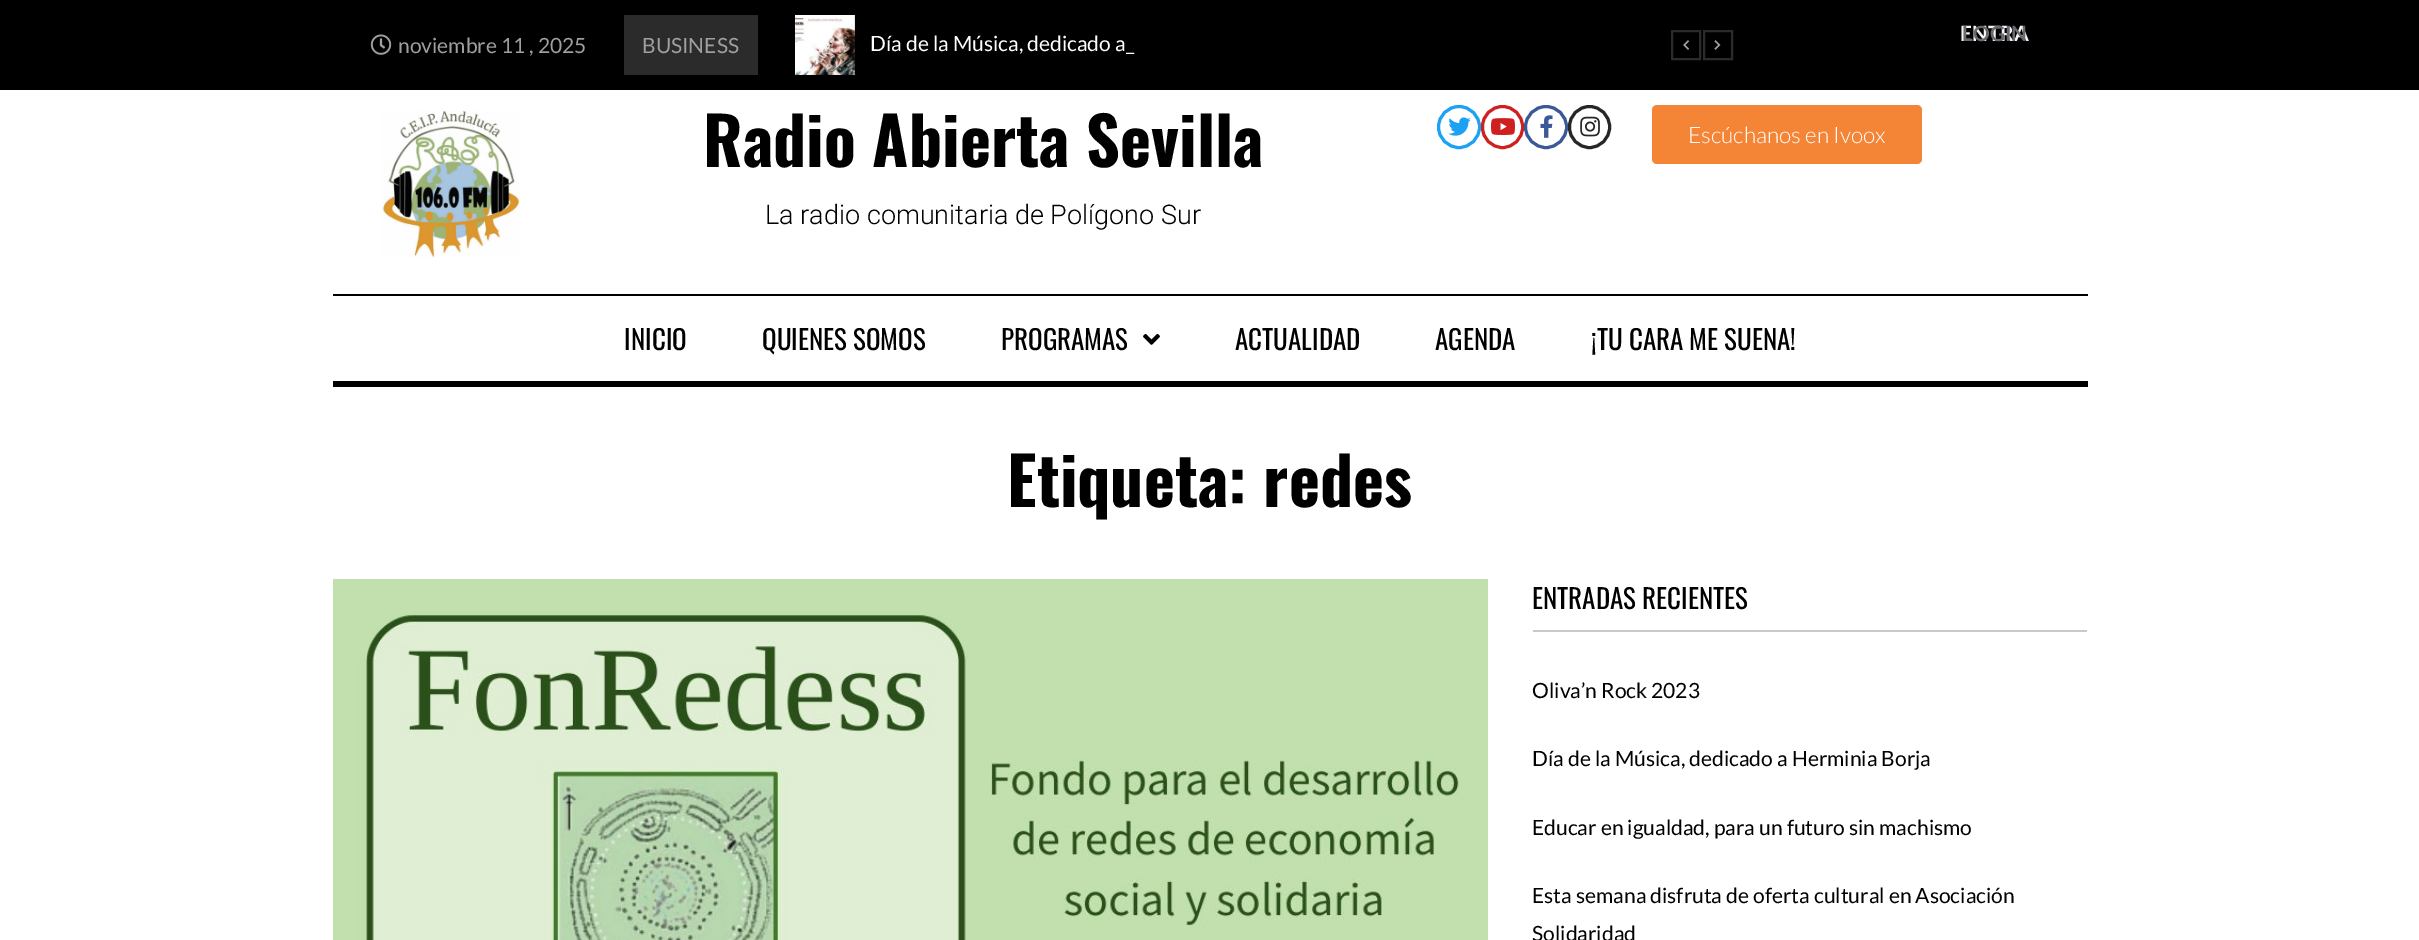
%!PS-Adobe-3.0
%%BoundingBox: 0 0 2419 940
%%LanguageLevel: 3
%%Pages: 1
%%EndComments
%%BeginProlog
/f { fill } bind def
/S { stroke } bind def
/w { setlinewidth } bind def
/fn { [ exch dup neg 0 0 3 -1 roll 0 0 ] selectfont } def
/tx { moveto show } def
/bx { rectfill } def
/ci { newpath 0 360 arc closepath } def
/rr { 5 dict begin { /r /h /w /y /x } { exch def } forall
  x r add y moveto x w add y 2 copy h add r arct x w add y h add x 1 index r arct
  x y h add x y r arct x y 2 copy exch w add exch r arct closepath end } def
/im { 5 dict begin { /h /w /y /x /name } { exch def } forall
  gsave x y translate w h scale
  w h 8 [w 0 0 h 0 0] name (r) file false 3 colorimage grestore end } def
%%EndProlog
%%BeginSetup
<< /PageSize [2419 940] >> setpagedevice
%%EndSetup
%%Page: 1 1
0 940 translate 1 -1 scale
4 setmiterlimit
1 setgray
0 0 2419 940 bx
0 setgray
0 0 2419 90 bx
(image0.raw) 370 34 22 21 im
/Lato-Regular 21 fn
0.624 setgray
(noviembre 11 , 2025) 398 53 tx
0.169 setgray
624 15 134 60 bx
0.624 setgray
(BUSINESS) 642 53 tx
(image1.raw) 795 15 60 60 im
1 setgray
(Día de la Música, dedicado a_) 870 51 tx
0.169 setgray
2 w
1672 31 28 28 rectstroke
(image2.raw) 1683 40 7 10 im
1704 31 28 28 rectstroke
(image3.raw) 1714 40 7 10 im
/Lato-Bold 21 fn
0.953 0.953 0.976 setrgbcolor
(ENTRA) 1960 41 tx
0.416 0.416 0.427 setrgbcolor
(LOGIN) 1962 41 tx
(image4.raw) 381 110 139 148 im
/Oswald-Bold 66 fn
0 setgray
(Radio Abierta Sevilla) 703 167 tx
/Roboto-Light 27 fn
(La radio comunitaria de Polígono Sur) 765 224 tx
0.114 0.631 0.949 setrgbcolor
3 w
1459 127 20.5 ci S
(image5.raw) 1448 117 23 19 im
0.804 0.125 0.122 setrgbcolor
1482.5 106.5 40 41 20 rr S
(image6.raw) 1491 118 24 17 im
0.231 0.349 0.596 setrgbcolor
1546 127 20.5 ci S
(image7.raw) 1540 115 13 23 im
0.149 setgray
1569.5 106.5 40 41 20 rr S
(image8.raw) 1580 116 20 21 im
0.957 0.522 0.212 setrgbcolor
1652 105 270 59 5 rr f
/Lato-Light 22.5 fn
1 setgray
(Escúchanos en Ivoox) 1688 143 tx
0 setgray
333 294 1755 2 bx
/Oswald-Regular 27 fn
(INICIO) 624 350 tx
(QUIENES SOMOS) 762 350 tx
(PROGRAMAS) 1001 350 tx
(image9.raw) 1143 334 17 11 im
(ACTUALIDAD) 1235 350 tx
(AGENDA) 1435 350 tx
(¡TU CARA ME SUENA!) 1591 350 tx
333 381 1755 6 bx
/Oswald-Bold 66 fn
(Etiqueta: redes) 1007 507 tx
(image10.raw) 333 579 1155 361 im
0.784 0.784 0.804 setrgbcolor
1533 630 554 2 bx
/Oswald-Regular 27 fn
0 setgray
(ENTRADAS RECIENTES) 1532 609 tx
/Lato-Regular 21 fn
(Oliva’n Rock 2023) 1532 698 tx
(Día de la Música, dedicado a Herminia Borja) 1532 766 tx
(Educar en igualdad, para un futuro sin machismo) 1532 835 tx
(Esta semana disfruta de oferta cultural en Asociación) 1532 903 tx
(Solidaridad) 1532 941 tx
showpage
%%EOF
